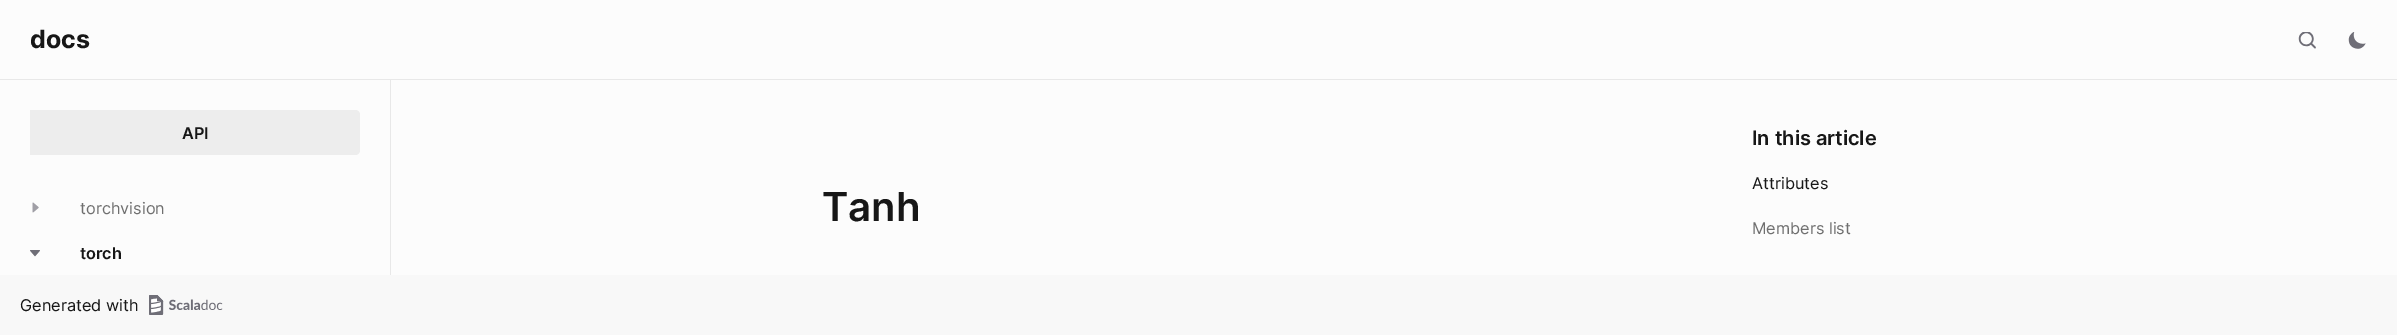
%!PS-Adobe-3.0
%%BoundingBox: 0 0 2397 335
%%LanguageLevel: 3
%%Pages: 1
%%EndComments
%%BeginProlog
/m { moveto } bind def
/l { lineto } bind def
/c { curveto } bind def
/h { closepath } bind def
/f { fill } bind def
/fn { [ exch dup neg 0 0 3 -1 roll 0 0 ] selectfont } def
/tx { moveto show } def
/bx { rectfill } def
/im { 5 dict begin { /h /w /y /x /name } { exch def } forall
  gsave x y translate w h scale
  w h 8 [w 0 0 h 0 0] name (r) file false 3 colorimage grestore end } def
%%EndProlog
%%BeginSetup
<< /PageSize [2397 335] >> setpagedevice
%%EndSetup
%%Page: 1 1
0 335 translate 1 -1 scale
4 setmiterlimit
0.988 setgray
0 0 2397 335 bx
0.91 setgray
0 79 2397 1 bx
/Inter-Bold 25 fn
0.09 setgray
(docs) 30 48 tx
(image0.raw) 2298 32 18 17 im
(image1.raw) 2348 32 18 17 im
0.91 setgray
390 80 1 196 bx
0.929 setgray
30 110 m 355 110 l 358 110 360 112 360 115 c 360 150 l 360 153 358 155 355 155 c 30 155 l h f
/Inter-SemiBold 16.25 fn
0.09 setgray
(API) 182 139 tx
(image2.raw) 32 202 7 11 im
/Inter-Regular 16.25 fn
0.435 setgray
(torchvision) 80 214 tx
(image3.raw) 30 250 10 7 im
/Inter-SemiBold 16.25 fn
0.09 setgray
(torch) 80 259 tx
/Inter-SemiBold 40 fn
(Tanh) 822 221 tx
/Inter-SemiBold 20 fn
(In this article) 1752 145 tx
/Inter-Regular 16.25 fn
(Attributes) 1752 189 tx
0.435 setgray
(Members list) 1752 234 tx
0.973 setgray
0 275 2397 60 bx
0.09 setgray
(Generated with) 20 311 tx
(image4.raw) 149 295 74 20 im
showpage
%%EOF
